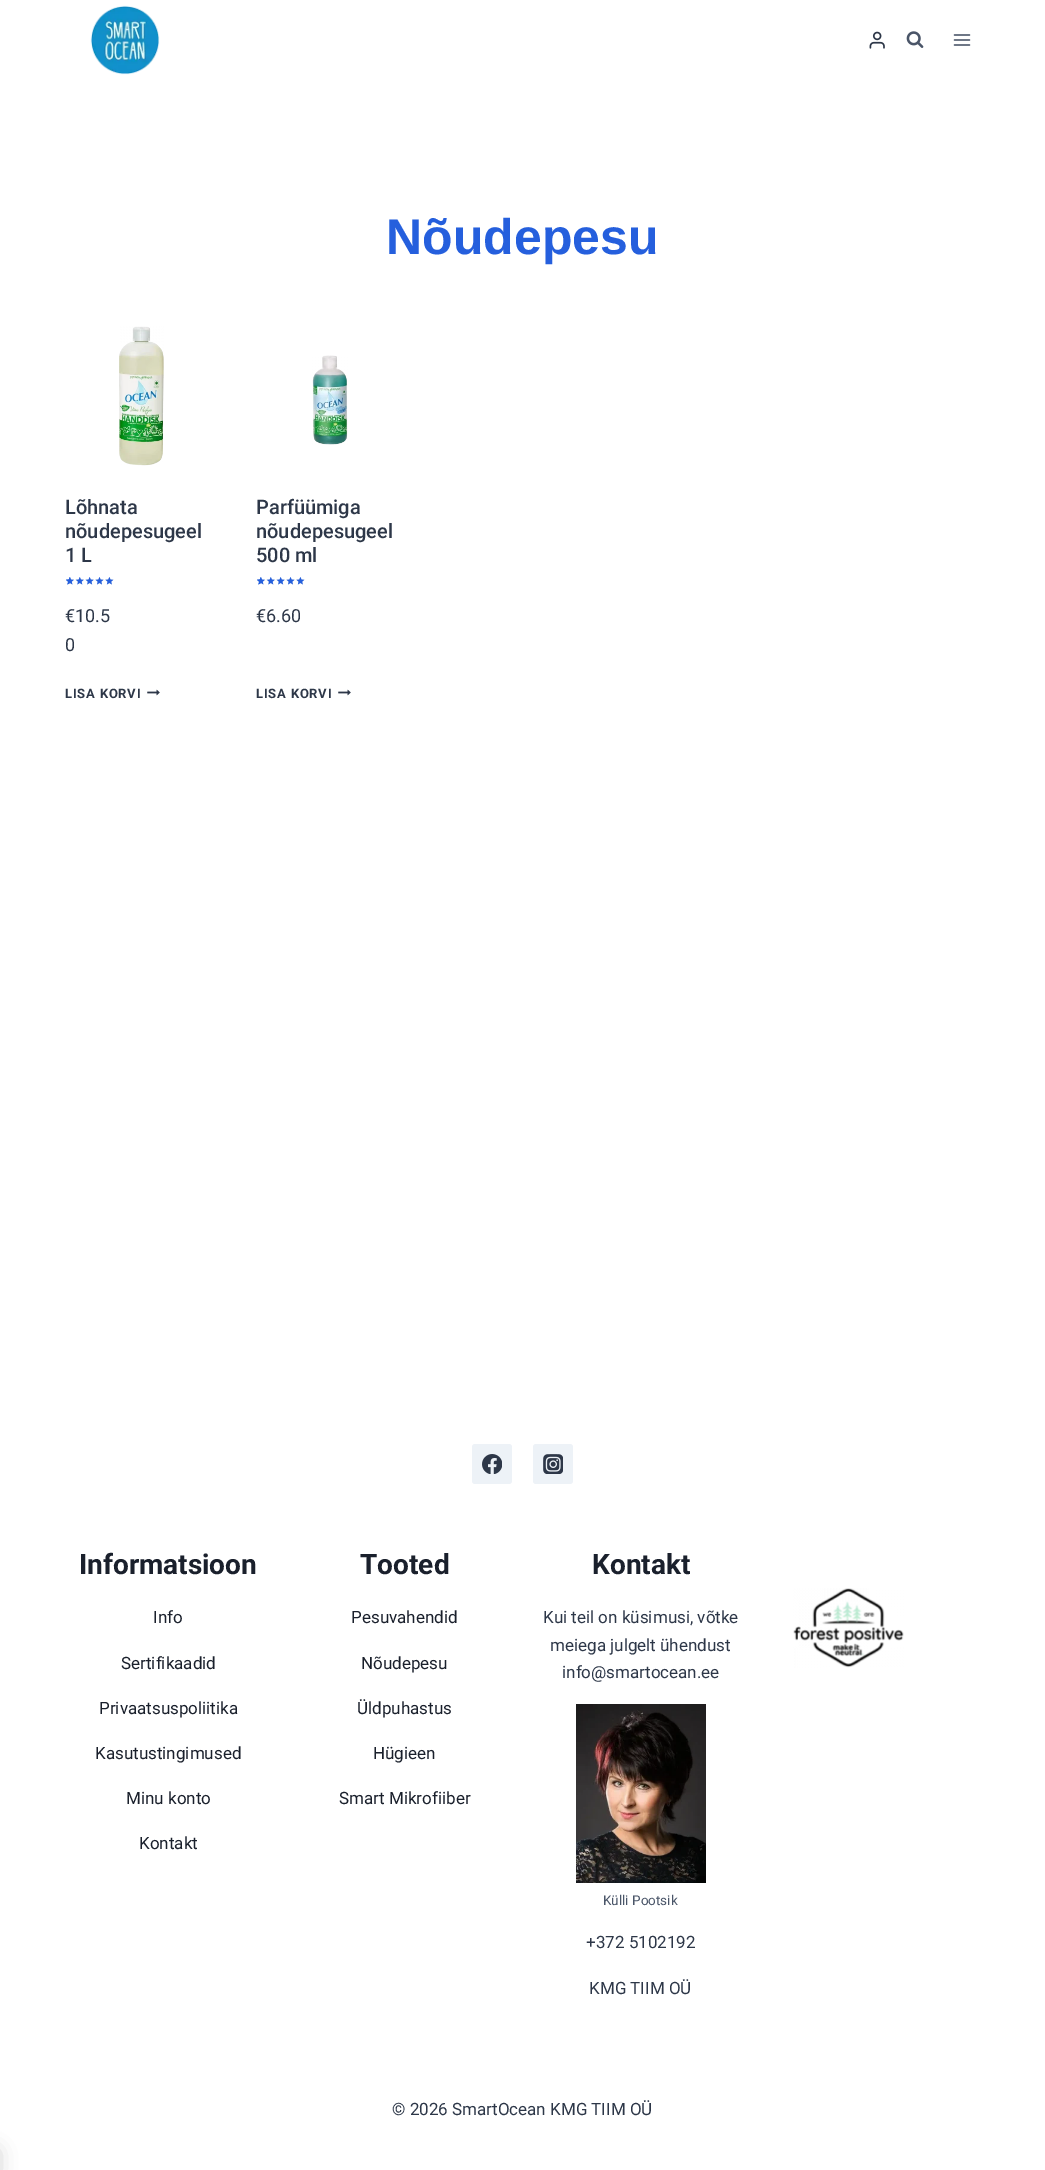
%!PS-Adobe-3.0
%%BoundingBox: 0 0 1045 2170
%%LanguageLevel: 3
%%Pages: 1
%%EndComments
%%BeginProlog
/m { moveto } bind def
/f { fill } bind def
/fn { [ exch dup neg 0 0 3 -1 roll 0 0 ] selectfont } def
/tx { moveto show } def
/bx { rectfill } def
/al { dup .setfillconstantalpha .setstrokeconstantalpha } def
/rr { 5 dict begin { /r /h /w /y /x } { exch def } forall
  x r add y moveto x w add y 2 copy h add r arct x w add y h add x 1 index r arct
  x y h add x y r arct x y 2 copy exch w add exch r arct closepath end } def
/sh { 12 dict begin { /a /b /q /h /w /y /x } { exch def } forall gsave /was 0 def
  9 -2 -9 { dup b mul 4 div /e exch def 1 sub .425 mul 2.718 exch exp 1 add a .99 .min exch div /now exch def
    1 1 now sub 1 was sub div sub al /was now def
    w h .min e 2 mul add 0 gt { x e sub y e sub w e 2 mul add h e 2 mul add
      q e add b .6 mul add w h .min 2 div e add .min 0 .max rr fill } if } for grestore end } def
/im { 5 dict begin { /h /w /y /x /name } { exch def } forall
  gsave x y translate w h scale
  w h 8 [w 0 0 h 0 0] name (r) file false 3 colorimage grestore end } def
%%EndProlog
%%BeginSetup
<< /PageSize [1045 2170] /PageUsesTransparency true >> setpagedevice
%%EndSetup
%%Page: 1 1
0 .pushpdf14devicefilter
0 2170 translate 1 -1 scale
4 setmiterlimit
1 setgray
0 0 1045 2170 bx
(image0.raw) 90 5 70 70 im
(image1.raw) 869 31 16 18 im
(image2.raw) 906 31 18 17 im
(image3.raw) 953 34 18 12 im
/LiberationSans-Bold 50 fn
0.145 0.373 0.867 setrgbcolor
(Nõudepesu) 386 254 tx
(image4.raw) 119 326 45 140 im
/Roboto-Medium 20 fn
0.176 0.216 0.282 setrgbcolor
(Lõhnata) 65 514 tx
(nõudepesugeel) 65 538 tx
(1 L) 65 562 tx
(image5.raw) 66 577 48 8 im
(image6.raw) 66 577 48 8 im
(image7.raw) 66 577 4 8 im
/Roboto-Regular 18 fn
(€10.5) 65 622 tx
(0) 65 651 tx
/Roboto-Bold 13 fn
65 698 m 0.75 0 (LISA KORVI) ashow
(image8.raw) 147 689 13 7 im
(image9.raw) 312 355 36 90 im
/Roboto-Medium 20 fn
(Parfüümiga) 256 514 tx
(nõudepesugeel) 256 538 tx
(500 ml) 256 562 tx
(image5.raw) 257 577 48 8 im
(image6.raw) 257 577 48 8 im
(image7.raw) 257 577 4 8 im
/Roboto-Regular 18 fn
(€6.60) 256 622 tx
/Roboto-Bold 13 fn
256 698 m 0.75 0 (LISA KORVI) ashow
(image8.raw) 338 689 13 7 im
0.929 0.949 0.969 setrgbcolor
472 1444 40 40 3 rr f
(image10.raw) 482 1454 20 20 im
533 1444 40 40 3 rr f
(image11.raw) 543 1454 20 20 im
/Roboto-Bold 28 fn
0.102 0.125 0.173 setrgbcolor
(Informatsioon) 79 1574 tx
/Roboto-Regular 17 fn
(Info) 153 1623 tx
(Sertifikaadid) 121 1669 tx
(Privaatsuspoliitika) 99 1714 tx
(Kasutustingimused) 95 1759 tx
(Minu konto) 126 1804 tx
(Kontakt) 139 1849 tx
/Roboto-Bold 28 fn
(Tooted) 360 1574 tx
/Roboto-Regular 17 fn
(Pesuvahendid) 351 1623 tx
(Nõudepesu) 361 1669 tx
(Üldpuhastus) 357 1714 tx
(Hügieen) 373 1759 tx
(Smart Mikrofiiber) 339 1804 tx
/Roboto-Bold 28 fn
(Kontakt) 592 1574 tx
/Roboto-Regular 17 fn
0.176 0.216 0.282 setrgbcolor
(Kui teil on küsimusi, võtke) 543 1623 tx
(meiega julgelt ühendust) 550 1651 tx
(info@smartocean.ee) 562 1678 tx
(image12.raw) 576 1704 130 179 im
/Roboto-Regular 13.5 fn
0.29 0.333 0.408 setrgbcolor
(Külli Pootsik) 603 1905 tx
/Roboto-Regular 17 fn
0.176 0.216 0.282 setrgbcolor
(+372 5102192) 586 1948 tx
(KMG TIIM OÜ) 589 1994 tx
(image13.raw) 793 1588 111 80 im
(© 2026 SmartOcean KMG TIIM OÜ) 392 2115 tx
0 setgray
-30 2152 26 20 0 10 0.25 sh
.poppdf14devicefilter showpage
%%EOF
